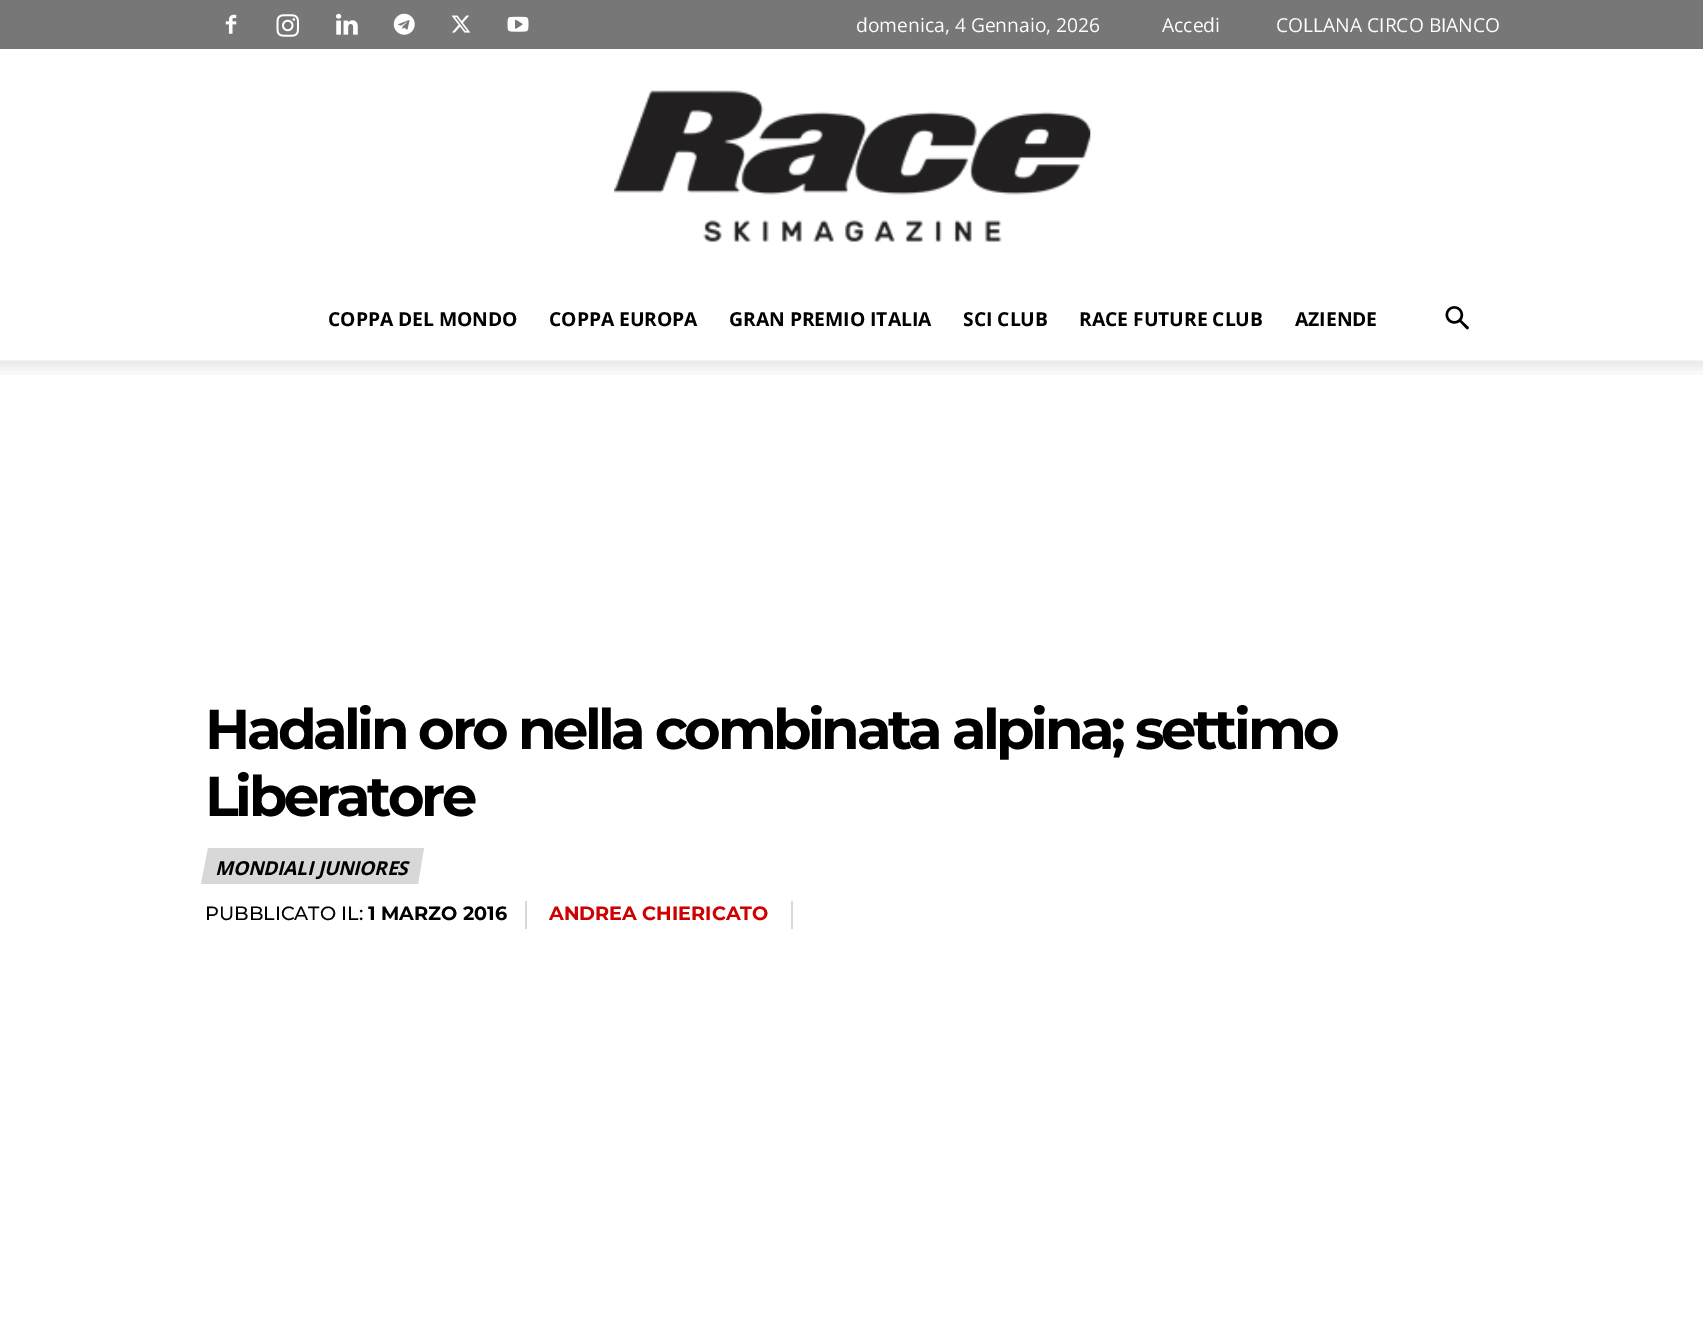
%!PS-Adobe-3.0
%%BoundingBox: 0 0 1703 1330
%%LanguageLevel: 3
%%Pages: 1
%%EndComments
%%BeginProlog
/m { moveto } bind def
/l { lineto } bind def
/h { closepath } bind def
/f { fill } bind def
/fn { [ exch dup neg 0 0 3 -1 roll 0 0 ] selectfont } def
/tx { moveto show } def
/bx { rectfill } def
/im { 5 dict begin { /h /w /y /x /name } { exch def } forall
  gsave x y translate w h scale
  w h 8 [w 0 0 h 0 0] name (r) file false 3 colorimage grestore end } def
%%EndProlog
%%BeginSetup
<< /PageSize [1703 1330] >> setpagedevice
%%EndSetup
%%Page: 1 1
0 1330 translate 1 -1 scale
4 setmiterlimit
1 setgray
0 0 1703 1330 bx
0.467 setgray
0 0 1703 49 bx
(image0.raw) 225 14 12 20 im
(image1.raw) 276 14 23 23 im
(image2.raw) 336 13 22 22 im
(image3.raw) 393 13 22 22 im
(image4.raw) 451 15 20 18 im
(image5.raw) 507 16 22 16 im
/OpenSans-Regular 19.25 fn
1 setgray
(domenica, 4 Gennaio, 2026) 856 32 tx
(Accedi) 1162 32 tx
(COLLANA CIRCO BIANCO) 1276 32 tx
(image6.raw) 614 90 477 152 im
/OpenSans-Bold 19.25 fn
0 setgray
(COPPA DEL MONDO) 328 326 tx
(COPPA EUROPA) 549 326 tx
(GRAN PREMIO ITALIA) 729 326 tx
(SCI CLUB) 963 326 tx
(RACE FUTURE CLUB) 1079 326 tx
(AZIENDE) 1295 326 tx
(image7.raw) 1445 306 24 24 im
(image8.raw) 0 360 1703 15 im
/Montserrat-Bold 56 fn
205 749 m -3.5 0 (Hadalin oro nella combinata alpina; settimo) ashow
205 816 m -3.5 0 (Liberatore) ashow
0.847 setgray
208 848 m 424 848 l 418 884 l 201 884 l h f
/OpenSans-BoldItalic 19.25 fn
0 setgray
215 875 m -0.3 0 (MONDIALI JUNIORES) ashow
0.847 setgray
525 901 2 28 bx
/Montserrat-Medium 19.25 fn
0 setgray
(PUBBLICATO IL:) 205 920 tx
/Montserrat-Bold 19.25 fn
(1 MARZO 2016) 368 920 tx
0.847 setgray
791 901 2 28 bx
0.808 0 0 setrgbcolor
(ANDREA CHIERICATO) 549 920 tx
showpage
%%EOF
